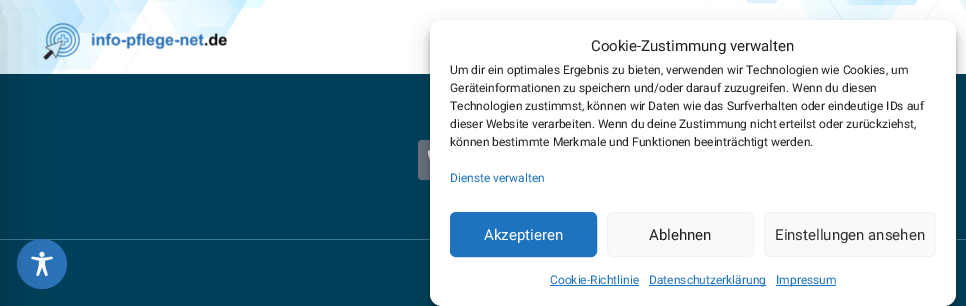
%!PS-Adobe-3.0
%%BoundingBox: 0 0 966 306
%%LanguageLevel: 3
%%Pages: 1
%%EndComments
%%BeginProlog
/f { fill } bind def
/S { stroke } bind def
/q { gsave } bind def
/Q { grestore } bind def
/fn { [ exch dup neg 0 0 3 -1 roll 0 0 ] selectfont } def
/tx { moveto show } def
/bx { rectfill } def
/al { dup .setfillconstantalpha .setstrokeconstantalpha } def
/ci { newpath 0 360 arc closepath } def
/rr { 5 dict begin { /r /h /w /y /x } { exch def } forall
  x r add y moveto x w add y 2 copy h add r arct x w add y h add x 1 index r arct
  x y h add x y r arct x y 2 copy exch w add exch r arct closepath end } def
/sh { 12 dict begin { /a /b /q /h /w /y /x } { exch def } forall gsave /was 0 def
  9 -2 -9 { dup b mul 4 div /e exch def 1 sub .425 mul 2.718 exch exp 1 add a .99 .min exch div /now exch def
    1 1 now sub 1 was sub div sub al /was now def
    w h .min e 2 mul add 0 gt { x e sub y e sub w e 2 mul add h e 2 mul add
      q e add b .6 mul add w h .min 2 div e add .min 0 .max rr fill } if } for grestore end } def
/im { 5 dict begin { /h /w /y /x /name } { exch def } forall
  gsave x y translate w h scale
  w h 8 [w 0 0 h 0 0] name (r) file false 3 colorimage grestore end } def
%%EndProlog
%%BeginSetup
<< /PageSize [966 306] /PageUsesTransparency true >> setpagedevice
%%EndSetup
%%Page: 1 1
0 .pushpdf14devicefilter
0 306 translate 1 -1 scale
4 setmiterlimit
0 0.247 0.353 setrgbcolor
0 0 966 306 bx
(image0.raw) 0 0 966 74 im
(image1.raw) 43 22 185 39 im
0.259 0.471 0.569 setrgbcolor
0 239 966 1 bx
0.169 0.455 0.725 setrgbcolor
42 264 25 ci f
(image3.raw) 31 251 22 26 im
0 setgray
-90 10 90 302 0 30 0.2 sh
0.412 0.447 0.49 setrgbcolor
418 140 40 40 4 rr f
(image2.raw) 428 150 2 10 im
0 setgray
430 26 526 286 12 3 0.23 sh
430 30 526 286 12 10 0.19 sh
1 setgray
430 20 526 286 12 rr f
/Roboto-Regular 15 fn
0.133 setgray
(Cookie-Zustimmung verwalten) 591 51 tx
/Roboto-Regular 12 fn
(Um dir ein optimales Ergebnis zu bieten, verwenden wir Technologien wie Cookies, um) 450 74 tx
(Geräteinformationen zu speichern und/oder darauf zuzugreifen. Wenn du diesen) 450 92 tx
(Technologien zustimmst, können wir Daten wie das Surfverhalten oder eindeutige IDs auf) 450 110 tx
(dieser Website verarbeiten. Wenn du deine Zustimmung nicht erteilst oder zurückziehst,) 450 128 tx
(können bestimmte Merkmale und Funktionen beeinträchtigt werden.) 450 146 tx
0.118 0.451 0.745 setrgbcolor
(Dienste verwalten) 450 182 tx
450.5 212.5 146 44 5.5 rr q f Q
S
/Roboto-Regular 15 fn
1 setgray
(Akzeptieren) 484 240 tx
0.976 setgray
607.5 212.5 146 44 5.5 rr q f Q
0.949 setgray
S
0.133 setgray
(Ablehnen) 649 240 tx
0.976 setgray
764.5 212.5 171 44 5.5 rr q f Q
0.949 setgray
S
0.2 setgray
(Einstellungen ansehen) 775 240 tx
/Roboto-Regular 12 fn
0.118 0.451 0.745 setrgbcolor
(Cookie-Richtlinie) 550 284 tx
550 285 89 1 bx
649 285 117 1 bx
(Datenschutzerklärung) 649 284 tx
776 285 60 1 bx
(Impressum) 776 284 tx
.poppdf14devicefilter showpage
%%EOF
